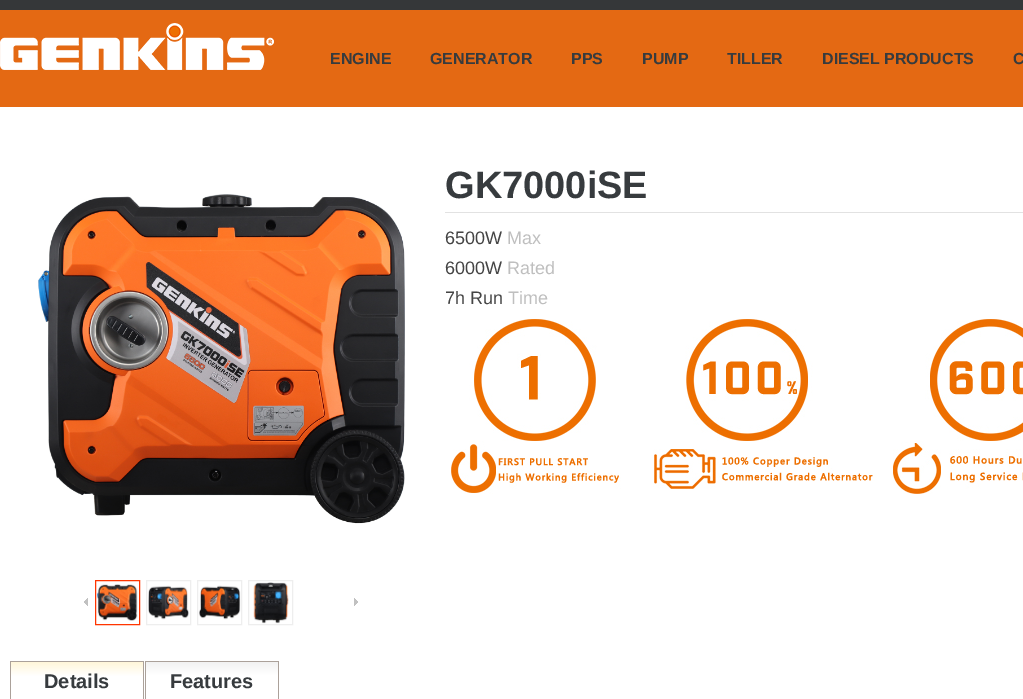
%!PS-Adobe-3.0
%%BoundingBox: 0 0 1023 699
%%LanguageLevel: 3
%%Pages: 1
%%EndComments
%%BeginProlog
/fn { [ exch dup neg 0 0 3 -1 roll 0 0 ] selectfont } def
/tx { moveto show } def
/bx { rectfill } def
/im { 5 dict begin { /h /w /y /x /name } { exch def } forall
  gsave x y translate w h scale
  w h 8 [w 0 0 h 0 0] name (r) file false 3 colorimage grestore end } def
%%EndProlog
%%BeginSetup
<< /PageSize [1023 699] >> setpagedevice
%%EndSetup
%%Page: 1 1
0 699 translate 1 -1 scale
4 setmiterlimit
1 setgray
0 0 1023 699 bx
0.894 0.412 0.075 setrgbcolor
0 10 1023 97 bx
0.208 0.216 0.224 setrgbcolor
0 0 1023 10 bx
(image0.raw) 0 23 274 47 im
/LiberationSans-Bold 16 fn
0.216 0.231 0.243 setrgbcolor
(ENGINE) 330 64 tx
(GENERATOR) 430 64 tx
(PPS) 571 64 tx
(PUMP) 642 64 tx
(TILLER) 727 64 tx
(DIESEL PRODUCTS) 822 64 tx
(C) 1013 64 tx
(image1.raw) 38 194 367 330 im
(image2.raw) 84 598 4 8 im
1 0.208 0 setrgbcolor
95.5 580.5 44 44 rectstroke
(image3.raw) 97 584 41 37 im
0.933 setgray
146.5 580.5 44 44 rectstroke
(image4.raw) 148 585 41 35 im
197.5 580.5 44 44 rectstroke
(image5.raw) 199 585 42 35 im
248.5 580.5 44 44 rectstroke
(image6.raw) 253 582 36 42 im
(image7.raw) 354 598 4 8 im
0.886 setgray
445 212 578 1 bx
/LiberationSans-Bold 38 fn
0.216 0.231 0.243 setrgbcolor
(GK7000iSE) 445 198 tx
/LiberationSans-Regular 18 fn
0.271 setgray
(6500W) 445 244 tx
0.749 setgray
(Max) 507 244 tx
0.271 setgray
(6000W) 445 274 tx
0.749 setgray
(Rated) 507 274 tx
0.271 setgray
(7h Run) 445 304 tx
0.749 setgray
(Time) 508 304 tx
(image8.raw) 451 319 572 175 im
(image9.raw) 10 661 134 38 im
/LiberationSans-Bold 20 fn
0.216 0.231 0.243 setrgbcolor
(Details) 44 688 tx
(image10.raw) 145 661 134 38 im
(Features) 170 688 tx
showpage
%%EOF
